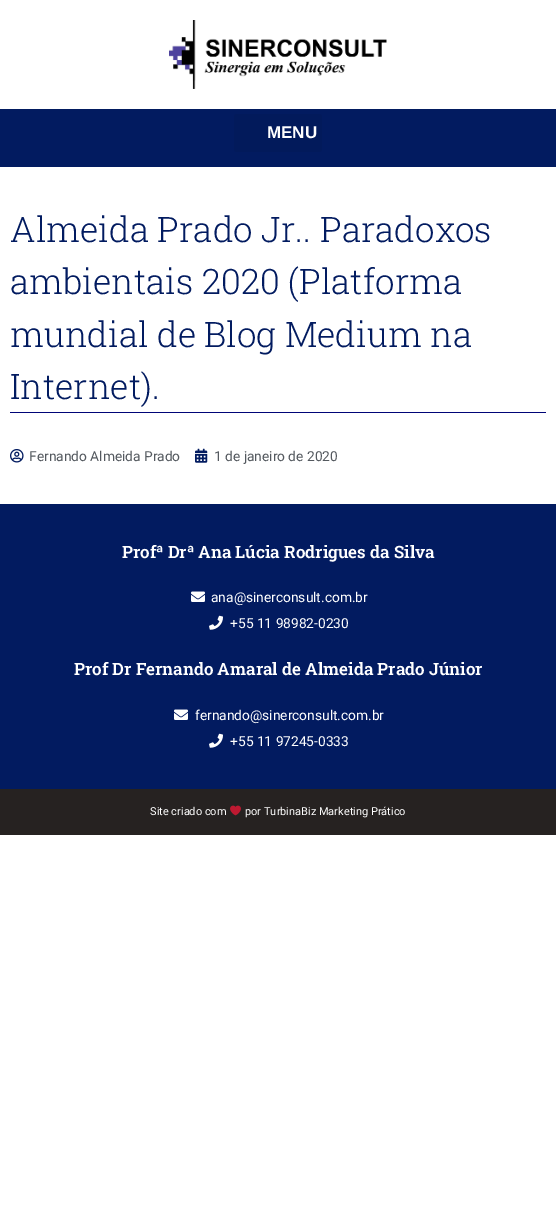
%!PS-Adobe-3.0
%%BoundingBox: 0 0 556 1231
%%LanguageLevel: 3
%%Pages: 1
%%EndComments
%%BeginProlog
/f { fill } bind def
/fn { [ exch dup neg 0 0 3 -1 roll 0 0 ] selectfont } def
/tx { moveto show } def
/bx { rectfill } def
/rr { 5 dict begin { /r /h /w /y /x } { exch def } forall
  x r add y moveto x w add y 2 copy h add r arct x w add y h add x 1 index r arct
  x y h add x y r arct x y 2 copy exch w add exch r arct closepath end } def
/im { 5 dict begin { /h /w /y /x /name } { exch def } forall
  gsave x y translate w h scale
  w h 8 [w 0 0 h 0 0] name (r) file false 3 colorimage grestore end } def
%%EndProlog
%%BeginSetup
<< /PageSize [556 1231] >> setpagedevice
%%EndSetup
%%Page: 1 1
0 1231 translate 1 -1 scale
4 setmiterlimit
1 setgray
0 0 556 1231 bx
(image0.raw) 169 20 218 69 im
0.008 0.106 0.376 setrgbcolor
0 109 556 58 bx
0.008 0.102 0.357 setrgbcolor
234 114 88 38 3 rr f
/LiberationSans-Bold 17 fn
1 setgray
(MENU) 267 138 tx
0 0.02 0.467 setrgbcolor
10 412 536 1 bx
/RobotoSlab-Light 35 fn
0.008 0.106 0.376 setrgbcolor
(Almeida Prado Jr.. Paradoxos) 10 242 tx
(ambientais 2020 \(Platforma) 10 294 tx
(mundial de Blog Medium na) 10 347 tx
(Internet\).) 10 399 tx
(image1.raw) 10 449 14 14 im
/Roboto-Regular 13.75 fn
0.329 0.349 0.373 setrgbcolor
(Fernando Almeida Prado) 29 461 tx
(image2.raw) 195 448 13 15 im
(1 de janeiro de 2020) 214 461 tx
0.008 0.106 0.376 setrgbcolor
0 504 556 285 bx
/RobotoSlab-SemiBold 17 fn
1 setgray
(Profª Drª Ana Lúcia Rodrigues da Silva) 122 558 tx
(image3.raw) 191 591 14 11 im
/Roboto-Regular 13.75 fn
(ana@sinerconsult.com.br) 211 602 tx
(image4.raw) 209 615 14 15 im
(+55 11 98982-0230) 230 628 tx
/RobotoSlab-SemiBold 17 fn
(Prof Dr Fernando Amaral de Almeida Prado Júnior) 74 675 tx
(image3.raw) 174 709 14 11 im
/Roboto-Regular 13.75 fn
(fernando@sinerconsult.com.br) 195 720 tx
(image4.raw) 209 733 14 15 im
(+55 11 97245-0333) 230 746 tx
0.149 0.133 0.129 setrgbcolor
0 789 556 46 bx
/Roboto-Regular 11 fn
1 setgray
(Site criado com) 150 815 tx
(image5.raw) 230 805 11 11 im
(por TurbinaBiz Marketing Prático) 245 815 tx
showpage
%%EOF
